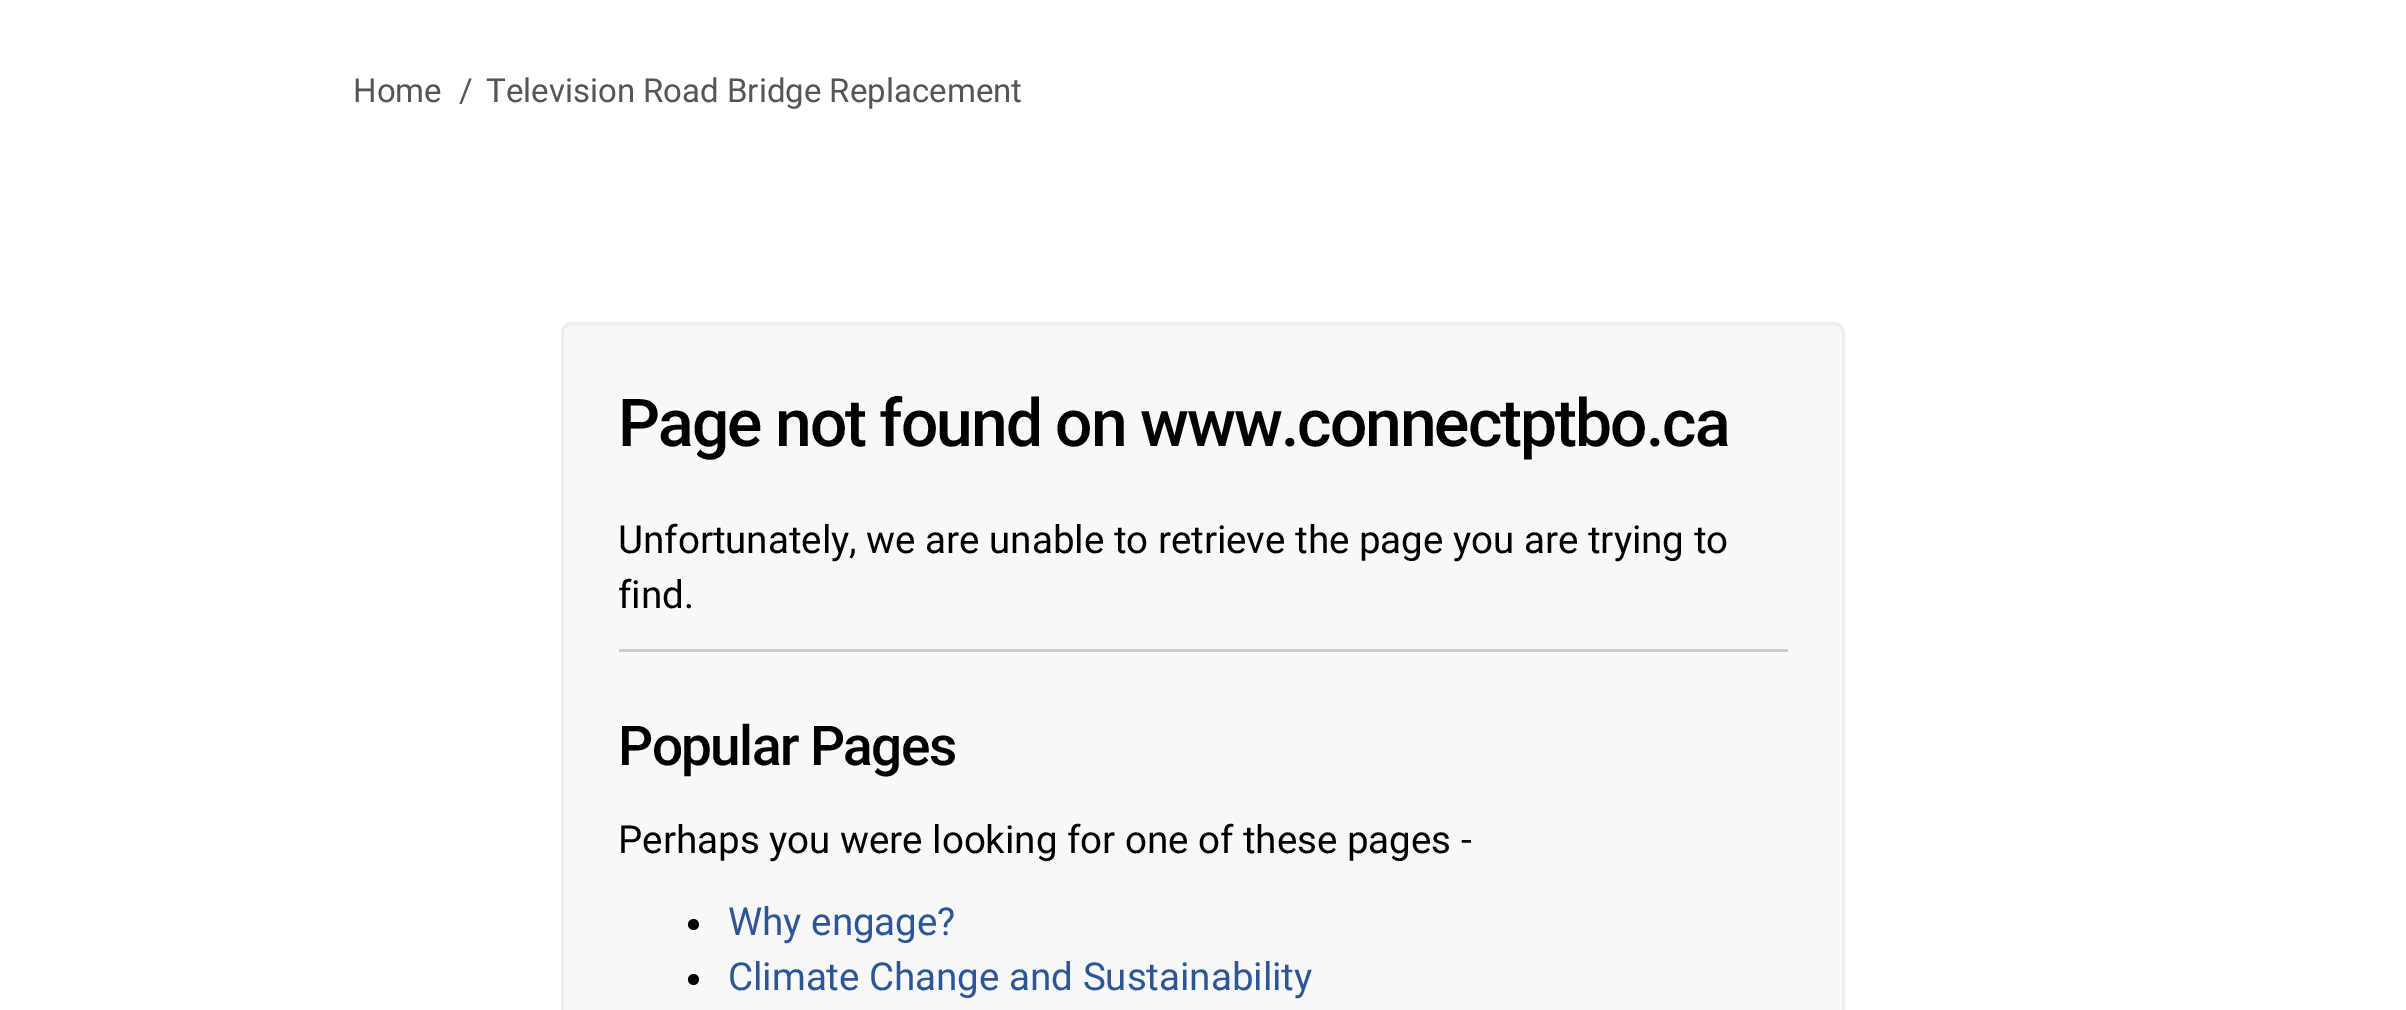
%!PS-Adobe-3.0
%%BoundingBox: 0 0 2406 1010
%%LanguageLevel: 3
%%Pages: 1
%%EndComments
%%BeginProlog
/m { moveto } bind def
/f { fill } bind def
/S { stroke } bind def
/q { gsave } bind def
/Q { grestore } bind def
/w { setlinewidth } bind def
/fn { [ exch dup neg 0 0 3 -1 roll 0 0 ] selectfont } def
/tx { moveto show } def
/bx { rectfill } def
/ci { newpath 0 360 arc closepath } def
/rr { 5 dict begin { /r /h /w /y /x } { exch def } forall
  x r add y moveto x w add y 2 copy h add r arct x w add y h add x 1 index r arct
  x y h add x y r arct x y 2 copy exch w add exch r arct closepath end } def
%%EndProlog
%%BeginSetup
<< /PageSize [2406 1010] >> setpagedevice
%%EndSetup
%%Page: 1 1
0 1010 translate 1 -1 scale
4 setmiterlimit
1 setgray
0 0 2406 1010 bx
/Roboto-Regular 33 fn
0.333 setgray
(Home) 353 102 tx
(/) 459 102 tx
(Television Road Bridge Replacement) 486 102 tx
0.973 setgray
562.5 323.5 1281 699 9.5 rr q f Q
0.933 setgray
3 w
S
/Roboto-Medium 66 fn
0 setgray
618 446 m -2 0 (Page not found on www.connectptbo.ca) ashow
/Roboto-Regular 38.5 fn
(Unfortunately, we are unable to retrieve the page you are trying to) 618 553 tx
(find.) 618 608 tx
0.8 setgray
619 649 1169 3 bx
/Roboto-Medium 55 fn
0 setgray
618 765 m -1.6 0 (Popular Pages) ashow
/Roboto-Regular 38.5 fn
(Perhaps you were looking for one of these pages -) 618 853 tx
693.5 924.5 5.5 ci f
0.173 0.337 0.592 setrgbcolor
(Why engage?) 728 935 tx
0 setgray
693.5 979.5 5.5 ci f
0.173 0.337 0.592 setrgbcolor
(Climate Change and Sustainability) 728 990 tx
showpage
%%EOF
